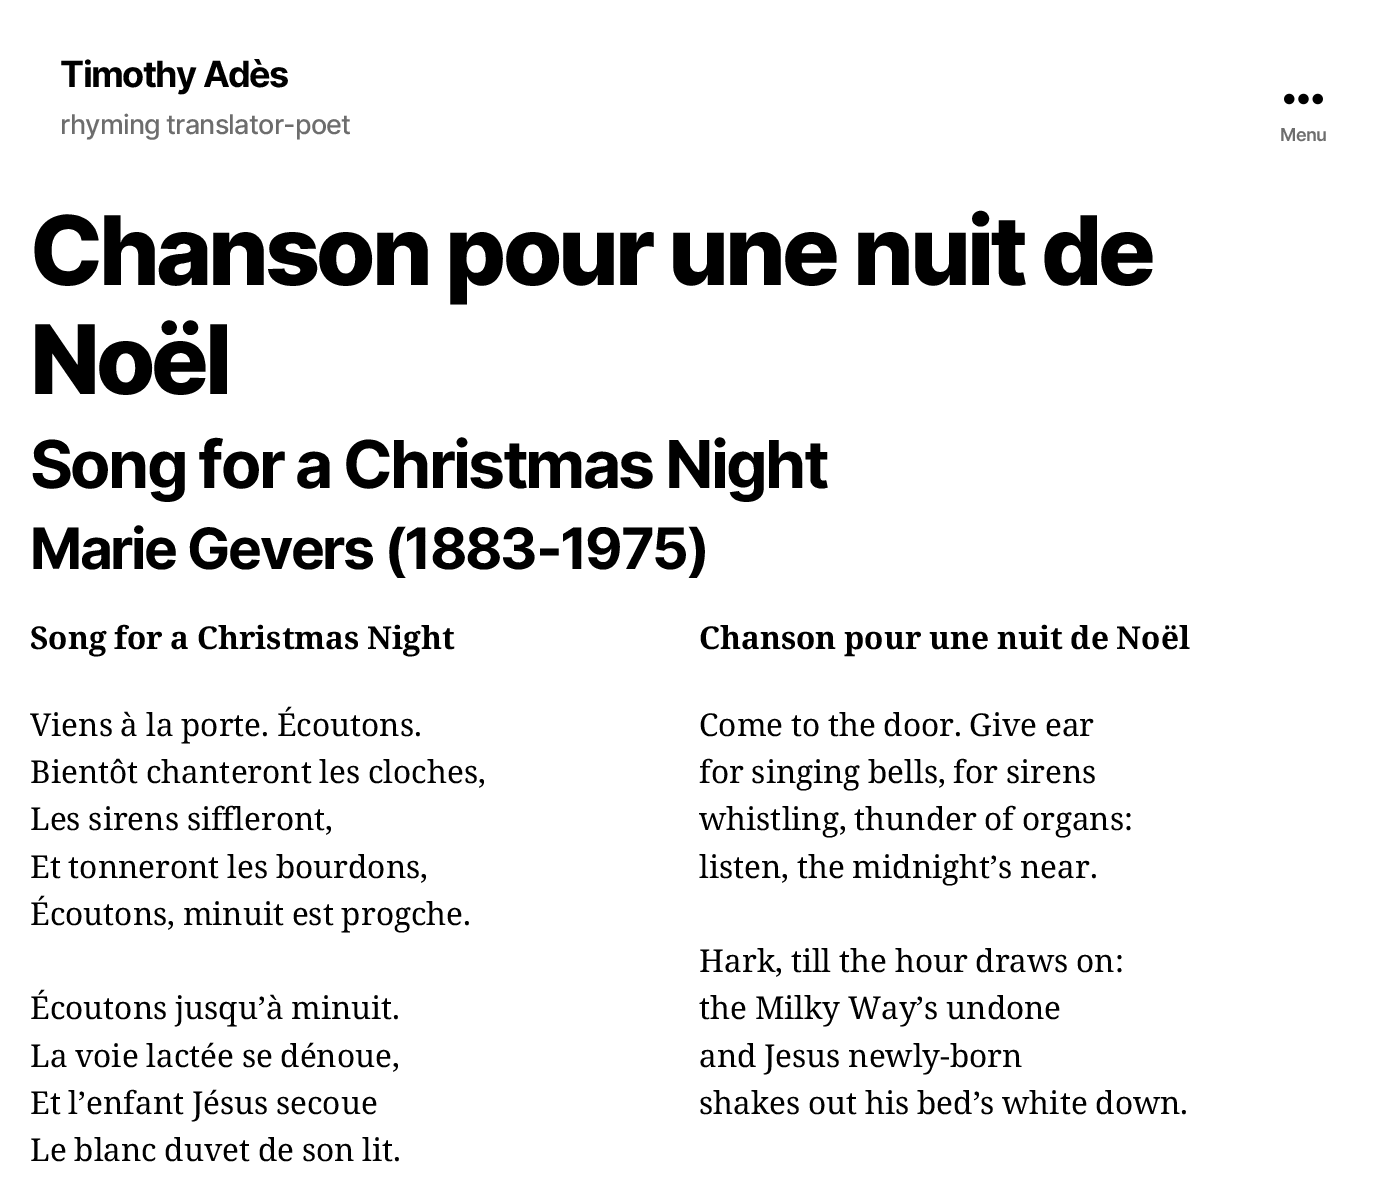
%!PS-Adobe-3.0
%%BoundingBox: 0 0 1382 1191
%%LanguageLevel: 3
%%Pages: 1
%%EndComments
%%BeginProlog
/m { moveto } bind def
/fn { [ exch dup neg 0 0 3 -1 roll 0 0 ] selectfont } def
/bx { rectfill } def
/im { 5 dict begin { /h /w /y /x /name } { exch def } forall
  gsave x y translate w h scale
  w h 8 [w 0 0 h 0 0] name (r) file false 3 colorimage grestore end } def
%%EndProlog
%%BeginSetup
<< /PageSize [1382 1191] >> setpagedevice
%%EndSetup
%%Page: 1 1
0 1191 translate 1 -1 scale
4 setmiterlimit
1 setgray
0 0 1382 1191 bx
/Inter-Bold 36 fn
0 setgray
60 87 m -1.5 0 (Timothy Adès) ashow
/Inter-Medium 27 fn
0.427 setgray
60 134 m -0.8 0 (rhyming translator-poet) ashow
(image0.raw) 1284 93 39 12 im
/Inter-SemiBold 18 fn
1280 141 m -0.5 0 (Menu) ashow
/Inter-ExtraBold 96 fn
0 setgray
30 285 m -4 0 (Chanson pour une nuit de) ashow
30 394 m -4 0 (Noël) ashow
/Inter-Bold 66 fn
30 488 m -2.75 0 (Song for a Christmas Night) ashow
/Inter-Bold 57 fn
30 569 m -2.4 0 (Marie Gevers \(1883-1975\)) ashow
/NotoSerif-Bold 31.5 fn
30 649 m -0.5 0 32 (Song for a Christmas Night) widthshow
/NotoSerif-Regular 31.5 fn
30 736 m -0.5 0 32 (Viens à la porte. Écoutons.) widthshow
30 783 m -0.5 0 32 (Bientôt chanteront les cloches,) widthshow
30 830 m -0.5 0 32 (Les sirens siffleront,) widthshow
30 878 m -0.5 0 32 (Et tonneront les bourdons,) widthshow
30 925 m -0.5 0 32 (Écoutons, minuit est progche.) widthshow
30 1019 m -0.5 0 32 (Écoutons jusqu’à minuit.) widthshow
30 1067 m -0.5 0 32 (La voie lactée se dénoue,) widthshow
30 1114 m -0.5 0 32 (Et l’enfant Jésus secoue) widthshow
30 1161 m -0.5 0 32 (Le blanc duvet de son lit.) widthshow
/NotoSerif-Bold 31.5 fn
699 649 m -0.5 0 32 (Chanson pour une nuit de Noël) widthshow
/NotoSerif-Regular 31.5 fn
699 736 m -0.5 0 32 (Come to the door. Give ear) widthshow
699 783 m -0.5 0 32 (for singing bells, for sirens) widthshow
699 830 m -0.5 0 32 (whistling, thunder of organs:) widthshow
699 878 m -0.5 0 32 (listen, the midnight’s near.) widthshow
699 972 m -0.5 0 32 (Hark, till the hour draws on:) widthshow
699 1019 m -0.5 0 32 (the Milky Way’s undone) widthshow
699 1067 m -0.5 0 32 (and Jesus newly-born) widthshow
699 1114 m -0.5 0 32 (shakes out his bed’s white down.) widthshow
showpage
%%EOF
